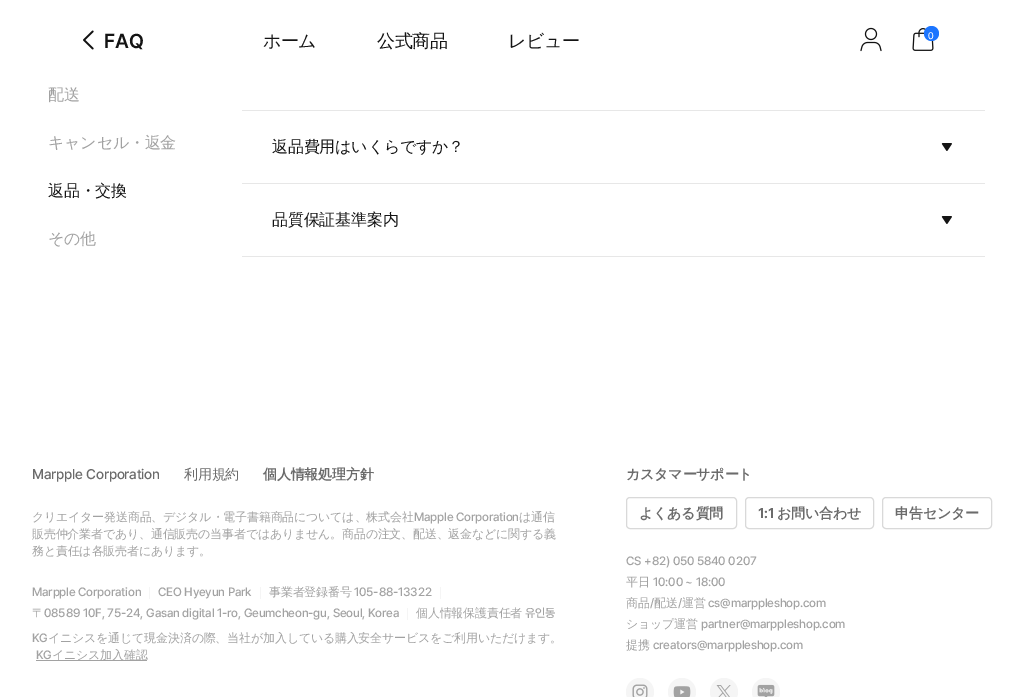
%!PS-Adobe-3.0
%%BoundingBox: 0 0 1017 697
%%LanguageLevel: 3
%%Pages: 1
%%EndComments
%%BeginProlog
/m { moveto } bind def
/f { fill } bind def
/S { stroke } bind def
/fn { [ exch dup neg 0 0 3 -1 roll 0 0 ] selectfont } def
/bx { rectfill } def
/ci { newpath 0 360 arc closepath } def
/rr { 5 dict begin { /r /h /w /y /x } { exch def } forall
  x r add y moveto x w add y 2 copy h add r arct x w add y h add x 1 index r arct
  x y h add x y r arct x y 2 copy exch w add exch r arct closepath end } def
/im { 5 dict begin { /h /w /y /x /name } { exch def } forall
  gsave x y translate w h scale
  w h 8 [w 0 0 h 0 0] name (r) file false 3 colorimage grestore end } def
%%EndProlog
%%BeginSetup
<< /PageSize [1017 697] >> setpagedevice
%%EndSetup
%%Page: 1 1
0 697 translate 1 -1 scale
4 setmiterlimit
1 setgray
0 0 1017 697 bx
(image0.raw) 83 30 11 20 im
/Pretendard-SemiBold 20 fn
0.078 setgray
104 48 m -0.2 0 (FAQ) ashow
/WenQuanYiZenHei-Medium 18 fn
263 47 m -0.5 0 (ホーム) ashow
377 47 m -0.5 0 (公式商品) ashow
508 47 m -0.5 0 (レビュー) ashow
(image1.raw) 860 27 22 25 im
(image2.raw) 912 28 22 23 im
0.11 0.459 1 setrgbcolor
931.5 33.5 7.5 ci f
/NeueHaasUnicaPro-Regular 10 fn
1 setgray
928 39 m -0.5 0 (0) ashow
/WenQuanYiZenHei-Medium 16 fn
0.635 setgray
48 100 m -0.2 0 (配送) ashow
48 148 m -0.2 0 (キャンセル・返金) ashow
0.078 setgray
48 196 m -0.2 0 (返品・交換) ashow
0.635 setgray
48 244 m -0.2 0 (その他) ashow
0.906 setgray
242 110 743 1 bx
242 183 743 1 bx
0.078 setgray
272 152 m -0.2 0 (返品費用はいくらですか？) ashow
(image3.raw) 941 143 11 8 im
0.906 setgray
242 256 743 1 bx
0.078 setgray
272 225 m -0.2 0 (品質保証基準案内) ashow
(image3.raw) 941 216 11 8 im
/Pretendard-Medium 14 fn
0.42 setgray
32 479 m -0.2 0 (Marpple Corporation) ashow
/WenQuanYiZenHei-Medium 14 fn
184 479 m -0.2 0 (利用規約) ashow
/WenQuanYiZenHei-Bold 14 fn
263 479 m -0.2 0 (個人情報処理方針) ashow
/WenQuanYiZenHei-Medium 12 fn
0.635 setgray
32 521 m -0.2 0 (クリエイター発送商品、デジタル・電子書籍商品については、株式会社) ashow
/Pretendard-Medium 12 fn
414 521 m -0.2 0 (Mapple Corporation) ashow
/WenQuanYiZenHei-Medium 12 fn
519 521 m -0.2 0 (は通信) ashow
32 538 m -0.2 0 (販売仲介業者であり、通信販売の当事者ではありません。商品の注文、配送、返金などに関する義) ashow
32 555 m -0.2 0 (務と責任は各販売者にあります。) ashow
/Pretendard-Medium 12 fn
32 596 m -0.2 0 (Marpple Corporation) ashow
0.961 setgray
149 587 1 12 bx
0.635 setgray
158 596 m -0.2 0 (CEO Hyeyun Park) ashow
0.961 setgray
260 587 1 12 bx
/WenQuanYiZenHei-Medium 12 fn
0.635 setgray
269 596 m -0.2 0 (事業者登録番号) ashow
/Pretendard-Medium 12 fn
354 596 m -0.2 0 (105-88-13322) ashow
0.961 setgray
440 587 1 12 bx
/WenQuanYiZenHei-Medium 12 fn
0.635 setgray
32 617 m -0.2 0 (〒) ashow
/Pretendard-Medium 12 fn
44 617 m -0.2 0 (08589 10F, 75-24, Gasan digital 1-ro, Geumcheon-gu, Seoul, Korea) ashow
0.961 setgray
407 608 1 12 bx
/WenQuanYiZenHei-Medium 12 fn
0.635 setgray
416 617 m -0.2 0 (個人情報保護責任者) ashow
/Pretendard-Medium 12 fn
525 617 m -0.2 0 (유인동) ashow
32 642 m -0.2 0 (KG) ashow
/WenQuanYiZenHei-Medium 12 fn
48 642 m -0.2 0 (イニシスを通じて現金決済の際、当社が加入している購入安全サービスをご利用いただけます。) ashow
/Pretendard-Medium 12 fn
36 659 m -0.2 0 (KG) ashow
36 660 111 1 bx
/WenQuanYiZenHei-Medium 12 fn
52 659 m -0.2 0 (イニシス加入確認) ashow
/WenQuanYiZenHei-Bold 14 fn
0.42 setgray
626 479 m -0.2 0 (カスタマーサポート) ashow
0.851 setgray
626.5 497.5 110 31 3.5 rr S
0.42 setgray
639 518 m -0.2 0 (よくある質問) ashow
0.851 setgray
745.5 497.5 128 31 3.5 rr S
/Pretendard-Bold 14 fn
0.42 setgray
758 518 m -0.2 0 (1:1) ashow
/WenQuanYiZenHei-Bold 14 fn
777 518 m -0.2 0 (お問い合わせ) ashow
0.851 setgray
882.5 497.5 109 31 3.5 rr S
0.42 setgray
895 518 m -0.2 0 (申告センター) ashow
/Pretendard-Medium 12 fn
0.635 setgray
626 565 m -0.2 0 (CS +82\) 050 5840 0207) ashow
/WenQuanYiZenHei-Medium 12 fn
626 586 m -0.2 0 (平日) ashow
/Pretendard-Medium 12 fn
653 586 m -0.2 0 (10:00 ~ 18:00) ashow
/WenQuanYiZenHei-Medium 12 fn
626 607 m -0.2 0 (商品) ashow
/Pretendard-Medium 12 fn
650 607 m -0.2 0 (/) ashow
/WenQuanYiZenHei-Medium 12 fn
654 607 m -0.2 0 (配送) ashow
/Pretendard-Medium 12 fn
678 607 m -0.2 0 (/) ashow
/WenQuanYiZenHei-Medium 12 fn
682 607 m -0.2 0 (運営) ashow
/Pretendard-Medium 12 fn
708 607 m -0.2 0 (cs@marppleshop.com) ashow
/WenQuanYiZenHei-Medium 12 fn
626 628 m -0.2 0 (ショップ運営) ashow
/Pretendard-Medium 12 fn
701 628 m -0.2 0 (partner@marppleshop.com) ashow
/WenQuanYiZenHei-Medium 12 fn
626 649 m -0.2 0 (提携) ashow
/Pretendard-Medium 12 fn
653 649 m -0.2 0 (creators@marppleshop.com) ashow
0.961 setgray
640 692 14 ci f
(image4.raw) 632 684 16 13 im
682 692 14 ci f
(image5.raw) 673 686 18 11 im
724 692 14 ci f
(image6.raw) 716 685 15 12 im
766 692 14 ci f
(image7.raw) 757 684 18 13 im
showpage
%%EOF
